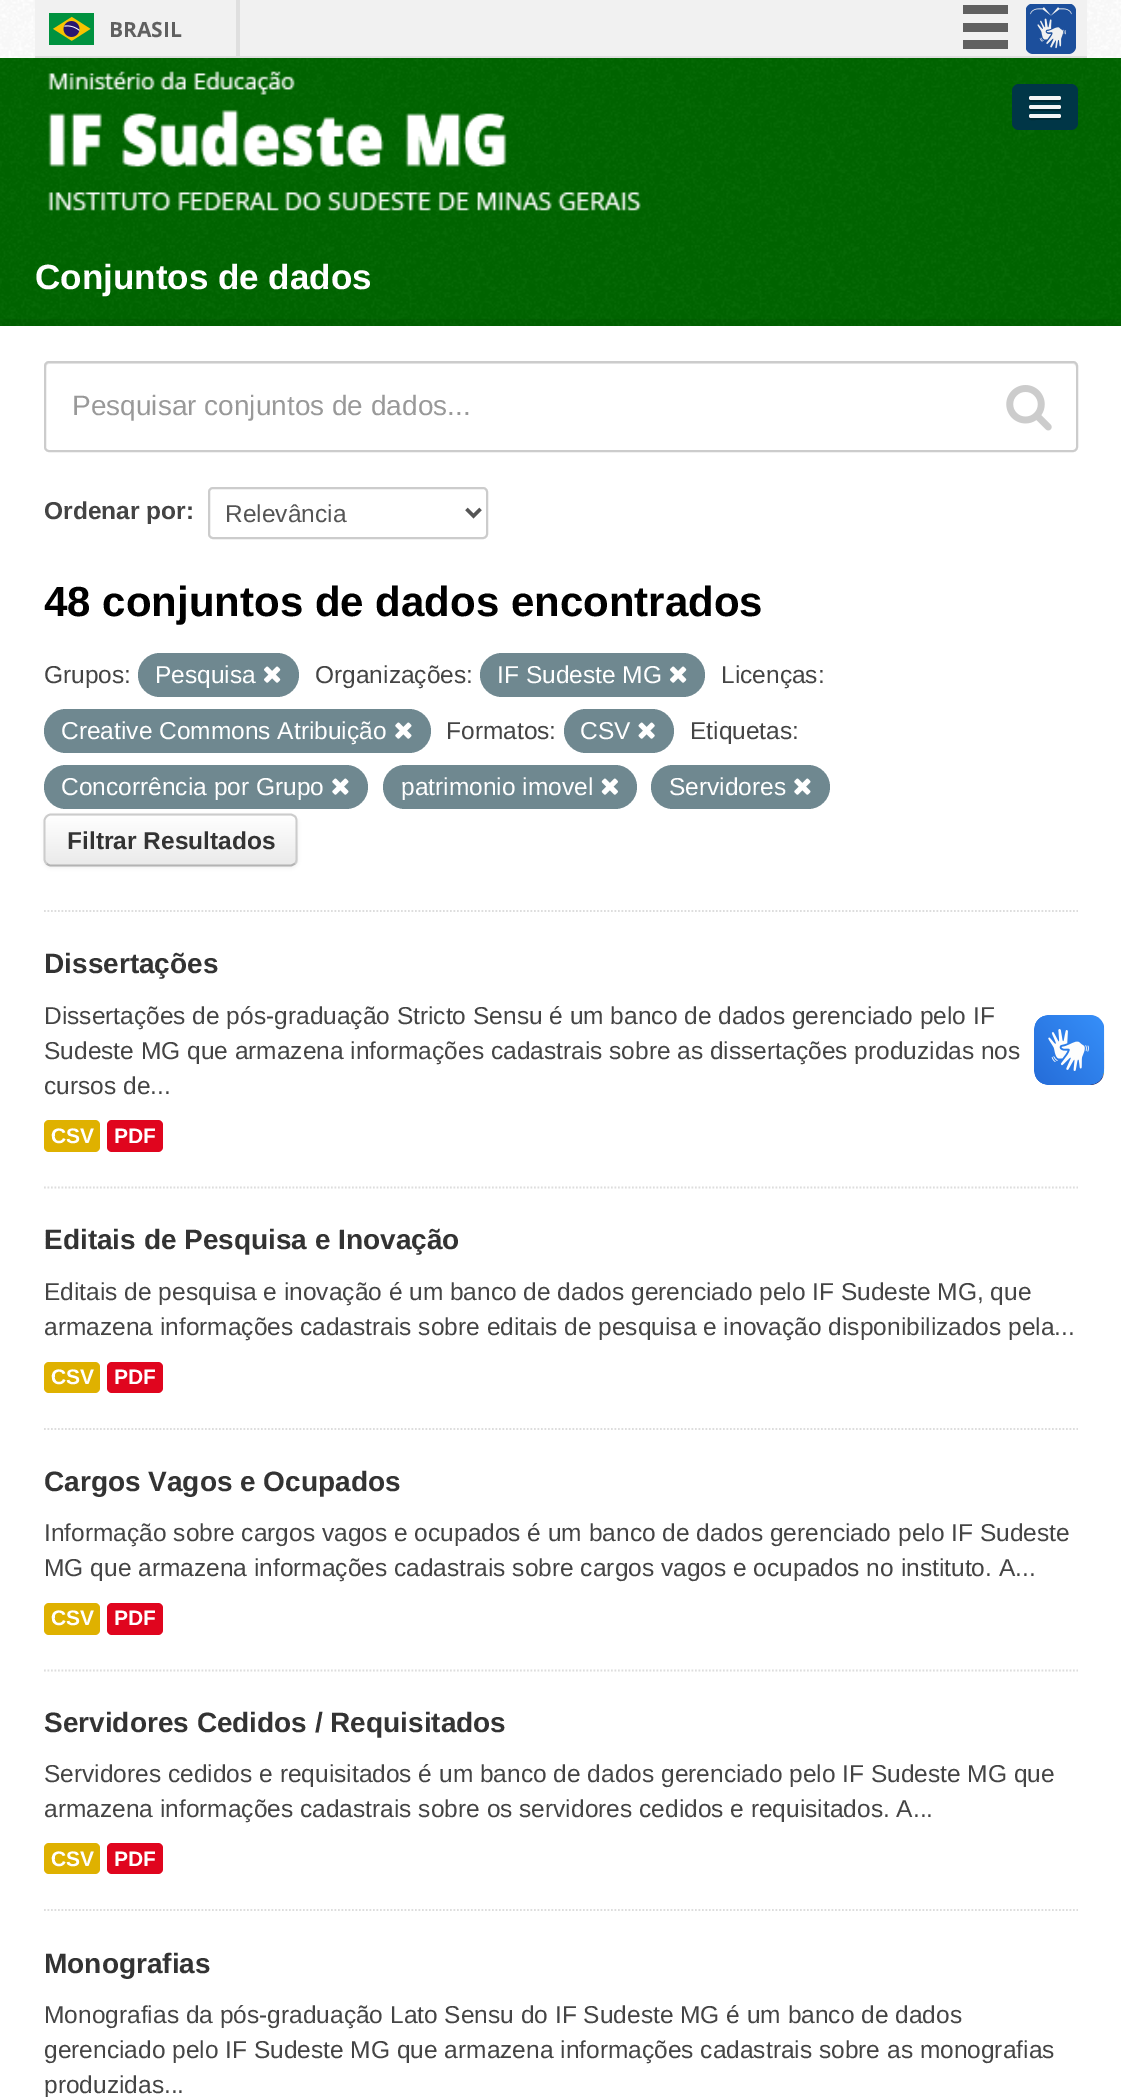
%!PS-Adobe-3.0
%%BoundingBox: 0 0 1121 2097
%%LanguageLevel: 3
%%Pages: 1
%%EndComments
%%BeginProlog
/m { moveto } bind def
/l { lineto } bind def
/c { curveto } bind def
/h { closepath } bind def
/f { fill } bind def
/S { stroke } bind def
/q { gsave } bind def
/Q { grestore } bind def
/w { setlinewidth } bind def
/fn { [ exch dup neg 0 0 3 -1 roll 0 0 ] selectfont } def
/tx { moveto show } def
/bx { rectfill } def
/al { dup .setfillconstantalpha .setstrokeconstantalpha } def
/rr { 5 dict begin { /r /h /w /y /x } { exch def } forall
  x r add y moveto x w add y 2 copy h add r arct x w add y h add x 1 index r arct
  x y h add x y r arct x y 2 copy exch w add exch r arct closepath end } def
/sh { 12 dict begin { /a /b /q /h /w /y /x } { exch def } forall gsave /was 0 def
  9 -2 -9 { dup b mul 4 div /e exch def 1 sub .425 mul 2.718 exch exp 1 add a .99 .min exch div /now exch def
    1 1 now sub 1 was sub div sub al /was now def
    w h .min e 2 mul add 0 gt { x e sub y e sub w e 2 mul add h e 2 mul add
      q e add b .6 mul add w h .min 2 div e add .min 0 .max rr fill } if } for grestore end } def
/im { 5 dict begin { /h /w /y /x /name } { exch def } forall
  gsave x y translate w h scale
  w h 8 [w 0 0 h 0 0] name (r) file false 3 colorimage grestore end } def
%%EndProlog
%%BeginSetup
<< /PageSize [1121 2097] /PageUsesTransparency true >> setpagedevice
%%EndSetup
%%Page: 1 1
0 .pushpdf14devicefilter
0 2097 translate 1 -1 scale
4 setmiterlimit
0 0.4 0 setrgbcolor
0 0 1121 2097 bx
(image0.raw) 0 245 1121 81 im
1 setgray
0 0 1121 58 bx
(image1.raw) 0 0 1121 58 im
0.945 setgray
35 0 1052 56 bx
0.875 setgray
35 56 1052 2 bx
236 0 4 56 bx
(image2.raw) 49 13 45 32 im
/OpenSans-Bold 21 fn
0.376 setgray
(BRASIL) 109 37 tx
963 5 45 9 bx
963 23 45 9 bx
963 40 45 9 bx
(image3.raw) 1026 4 50 50 im
(image4.raw) 0 58 1121 187 im
(image5.raw) 48 71 593 140 im
0 0.212 0.278 setrgbcolor
1012 84 66 46 7 rr f
0 0.161 0.208 setrgbcolor
1029.5 99 m 1027 103 1035 102 1035.5 102 c 1045 102 l 1047.5 102 1059 102.5 1060.5 101.5 c 1061 100.5 1061 99.5 1060.5 98.5 c 1059.5 99.5 l 1030.5 99.5 l h f
0.961 setgray
1029 96 32 4 2 rr f
0 0.161 0.208 setrgbcolor
1029.5 108 m 1029 109.5 l 1029.5 112 1034.5 111 1035.5 111 c 1054.5 111 l 1056 111 1061 112 1061 109 c 1060.5 107.5 l 1060 108 1059.5 108.5 1059 108.5 c 1030.5 108.5 l h f
0.961 setgray
1029 105 32 4 2 rr f
0 0.161 0.208 setrgbcolor
1029.5 116.5 m 1029 117 1029 118 1029 118.5 c 1029.5 121 1034.5 120 1035.5 120 c 1059 120 l 1061 120 1061.5 117.5 1060 116.5 c 1059 117 l 1030.5 117 l h f
0.961 setgray
1029 114 32 4 2 rr f
/LiberationSans-Bold 35 fn
1 setgray
(Conjuntos de dados) 35 289 tx
0.05 al
0 setgray
7 w
-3.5 322.5 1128 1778 rectstroke
1 al
1 setgray
0 326 1121 1771 bx
0.867 setgray
1.8 w
[1.75 1.75] 0 setdash
44 911 m 1078 911 l S
0.925 setgray
49 364 m 1073 364 l 1075 364 1076 366 1076 368 c 1076 366 l 1076 364 1074 362 1072 362 c 50 362 l 48 362 46 364 46 366 c 46 368 l 46 366 47 364 49 364 c h f
0.8 setgray
2 w
[] 0 setdash
45 362 1032 89 4 rr S
/LiberationSans-Regular 28 fn
0.6 setgray
(Pesquisar conjuntos de dados...) 72 415 tx
(image6.raw) 1006 385 46 46 im
/LiberationSans-Bold 24.5 fn
0.267 setgray
(Ordenar por:) 44 519 tx
0.8 setgray
209 488 278 50 4 rr S
0.333 setgray
3.5 w
466.5 509 m 473.5 516 l 480.5 509 l S
/LiberationSans-Regular 24.5 fn
(Relevância) 225 522 tx
/LiberationSans-Bold 42 fn
0 setgray
(48 conjuntos de dados encontrados) 44 616 tx
/LiberationSans-Regular 24.5 fn
0.267 setgray
(Grupos:) 44 683 tx
0.435 0.533 0.565 setrgbcolor
138 653 161 44 22 rr f
1 setgray
(Pesquisa) 155 683 tx
(image7.raw) 264 666 17 17 im
0.267 setgray
(Organizações:) 315 683 tx
0.435 0.533 0.565 setrgbcolor
480 653 225 44 22 rr f
1 setgray
(IF Sudeste MG) 497 683 tx
(image7.raw) 670 666 17 17 im
0.267 setgray
(Licenças:) 721 683 tx
0.435 0.533 0.565 setrgbcolor
44 709 387 44 22 rr f
1 setgray
(Creative Commons Atribuição) 61 739 tx
(image8.raw) 395 722 17 17 im
0.267 setgray
(Formatos:) 446 739 tx
0.435 0.533 0.565 setrgbcolor
564 709 110 44 22 rr f
1 setgray
(CSV) 580 739 tx
(image9.raw) 638 722 17 17 im
0.267 setgray
(Etiquetas:) 690 739 tx
0.435 0.533 0.565 setrgbcolor
44 765 324 44 22 rr f
1 setgray
(Concorrência por Grupo) 61 795 tx
(image8.raw) 332 778 17 17 im
0.435 0.533 0.565 setrgbcolor
383 765 254 44 22 rr f
1 setgray
(patrimonio imovel) 401 795 tx
(image10.raw) 601 778 17 17 im
0.435 0.533 0.565 setrgbcolor
651 765 179 44 22 rr f
1 setgray
(Servidores) 669 795 tx
(image8.raw) 794 778 17 17 im
0 setgray
44 816 254 52 7 2 0.05 sh
0.969 setgray
44 814 254 52 7 rr f
q
44 814 254 52 7 rr clip newpath
q 44 816 m 298 816 l 298 865 l 44 865 l h clip newpath
<< /ShadingType 2 /ColorSpace /DeviceRGB /Coords [171 816 171 865] /Extend [true true] /Function << /FunctionType 2 /Domain [0 1] /C0 [1 1 1] /C1 [0.918 0.918 0.918] /N 1 >> >> shfill Q
Q
0.702 setgray
1.8 w
295 863.5 m 293.5 864.5 292 865.5 290.5 865.5 c 51 865.5 l 49 865.5 47.5 864.5 46.5 863.5 c S
0.8 setgray
46.5 863.5 m 45.5 862.5 44.5 861 44.5 859 c 44.5 821 l 44.5 819 45.5 817.5 46.5 816.5 c 47.5 815.5 49 814.5 51 814.5 c 290.5 814.5 l 292 814.5 293.5 815.5 295 816.5 c 296 817.5 296.5 819 296.5 821 c 296.5 859 l 296.5 861 296 862.5 295 863.5 c S
/LiberationSans-Bold 24.5 fn
0.2 setgray
(Filtrar Resultados) 67 849 tx
0.867 setgray
[1.75 1.75] 0 setdash
44 1187.5 m 1078 1187.5 l S
/LiberationSans-Bold 28 fn
0.2 setgray
(Dissertações) 44 973 tx
/LiberationSans-Regular 24.5 fn
0.267 setgray
(Dissertações de pós-graduação Stricto Sensu é um banco de dados gerenciado pelo IF) 44 1024 tx
(Sudeste MG que armazena informações cadastrais sobre as dissertações produzidas nos) 44 1059 tx
(cursos de...) 44 1094 tx
0.875 0.694 0 setrgbcolor
44 1120 56 32 5 rr f
/LiberationSans-Bold 21 fn
1 setgray
(CSV) 51 1143 tx
0.878 0.02 0.118 setrgbcolor
107 1120 56 32 5 rr f
1 setgray
(PDF) 114 1143 tx
0.867 setgray
44 1429 m 1078 1429 l S
/LiberationSans-Bold 28 fn
0.2 setgray
(Editais de Pesquisa e Inovação) 44 1249 tx
/LiberationSans-Regular 24.5 fn
0.267 setgray
(Editais de pesquisa e inovação é um banco de dados gerenciado pelo IF Sudeste MG, que) 44 1300 tx
(armazena informações cadastrais sobre editais de pesquisa e inovação disponibilizados pela...) 44 1335 tx
0.875 0.694 0 setrgbcolor
44 1362 56 31 5 rr f
/LiberationSans-Bold 21 fn
1 setgray
(CSV) 51 1384 tx
0.878 0.02 0.118 setrgbcolor
107 1362 56 31 5 rr f
1 setgray
(PDF) 114 1384 tx
0.867 setgray
44 1670.5 m 1078 1670.5 l S
/LiberationSans-Bold 28 fn
0.2 setgray
(Cargos Vagos e Ocupados) 44 1491 tx
/LiberationSans-Regular 24.5 fn
0.267 setgray
(Informação sobre cargos vagos e ocupados é um banco de dados gerenciado pelo IF Sudeste) 44 1541 tx
(MG que armazena informações cadastrais sobre cargos vagos e ocupados no instituto. A...) 44 1576 tx
0.875 0.694 0 setrgbcolor
44 1603 56 32 5 rr f
/LiberationSans-Bold 21 fn
1 setgray
(CSV) 51 1625 tx
0.878 0.02 0.118 setrgbcolor
107 1603 56 32 5 rr f
1 setgray
(PDF) 114 1625 tx
0.867 setgray
44 1910 m 1078 1910 l S
/LiberationSans-Bold 28 fn
0.2 setgray
(Servidores Cedidos / Requisitados) 44 1732 tx
/LiberationSans-Regular 24.5 fn
0.267 setgray
(Servidores cedidos e requisitados é um banco de dados gerenciado pelo IF Sudeste MG que) 44 1782 tx
(armazena informações cadastrais sobre os servidores cedidos e requisitados. A...) 44 1817 tx
0.875 0.694 0 setrgbcolor
44 1843 56 31 5 rr f
/LiberationSans-Bold 21 fn
1 setgray
(CSV) 51 1866 tx
0.878 0.02 0.118 setrgbcolor
107 1843 56 31 5 rr f
1 setgray
(PDF) 114 1866 tx
/LiberationSans-Bold 28 fn
0.2 setgray
(Monografias) 44 1973 tx
/LiberationSans-Regular 24.5 fn
0.267 setgray
(Monografias da pós-graduação Lato Sensu do IF Sudeste MG é um banco de dados) 44 2023 tx
(gerenciado pelo IF Sudeste MG que armazena informações cadastrais sobre as monografias) 44 2058 tx
(produzidas...) 44 2093 tx
(image11.raw) 1034 1015 71 70 im
(image12.raw) 1034 1015 70 70 im
.poppdf14devicefilter showpage
%%EOF
